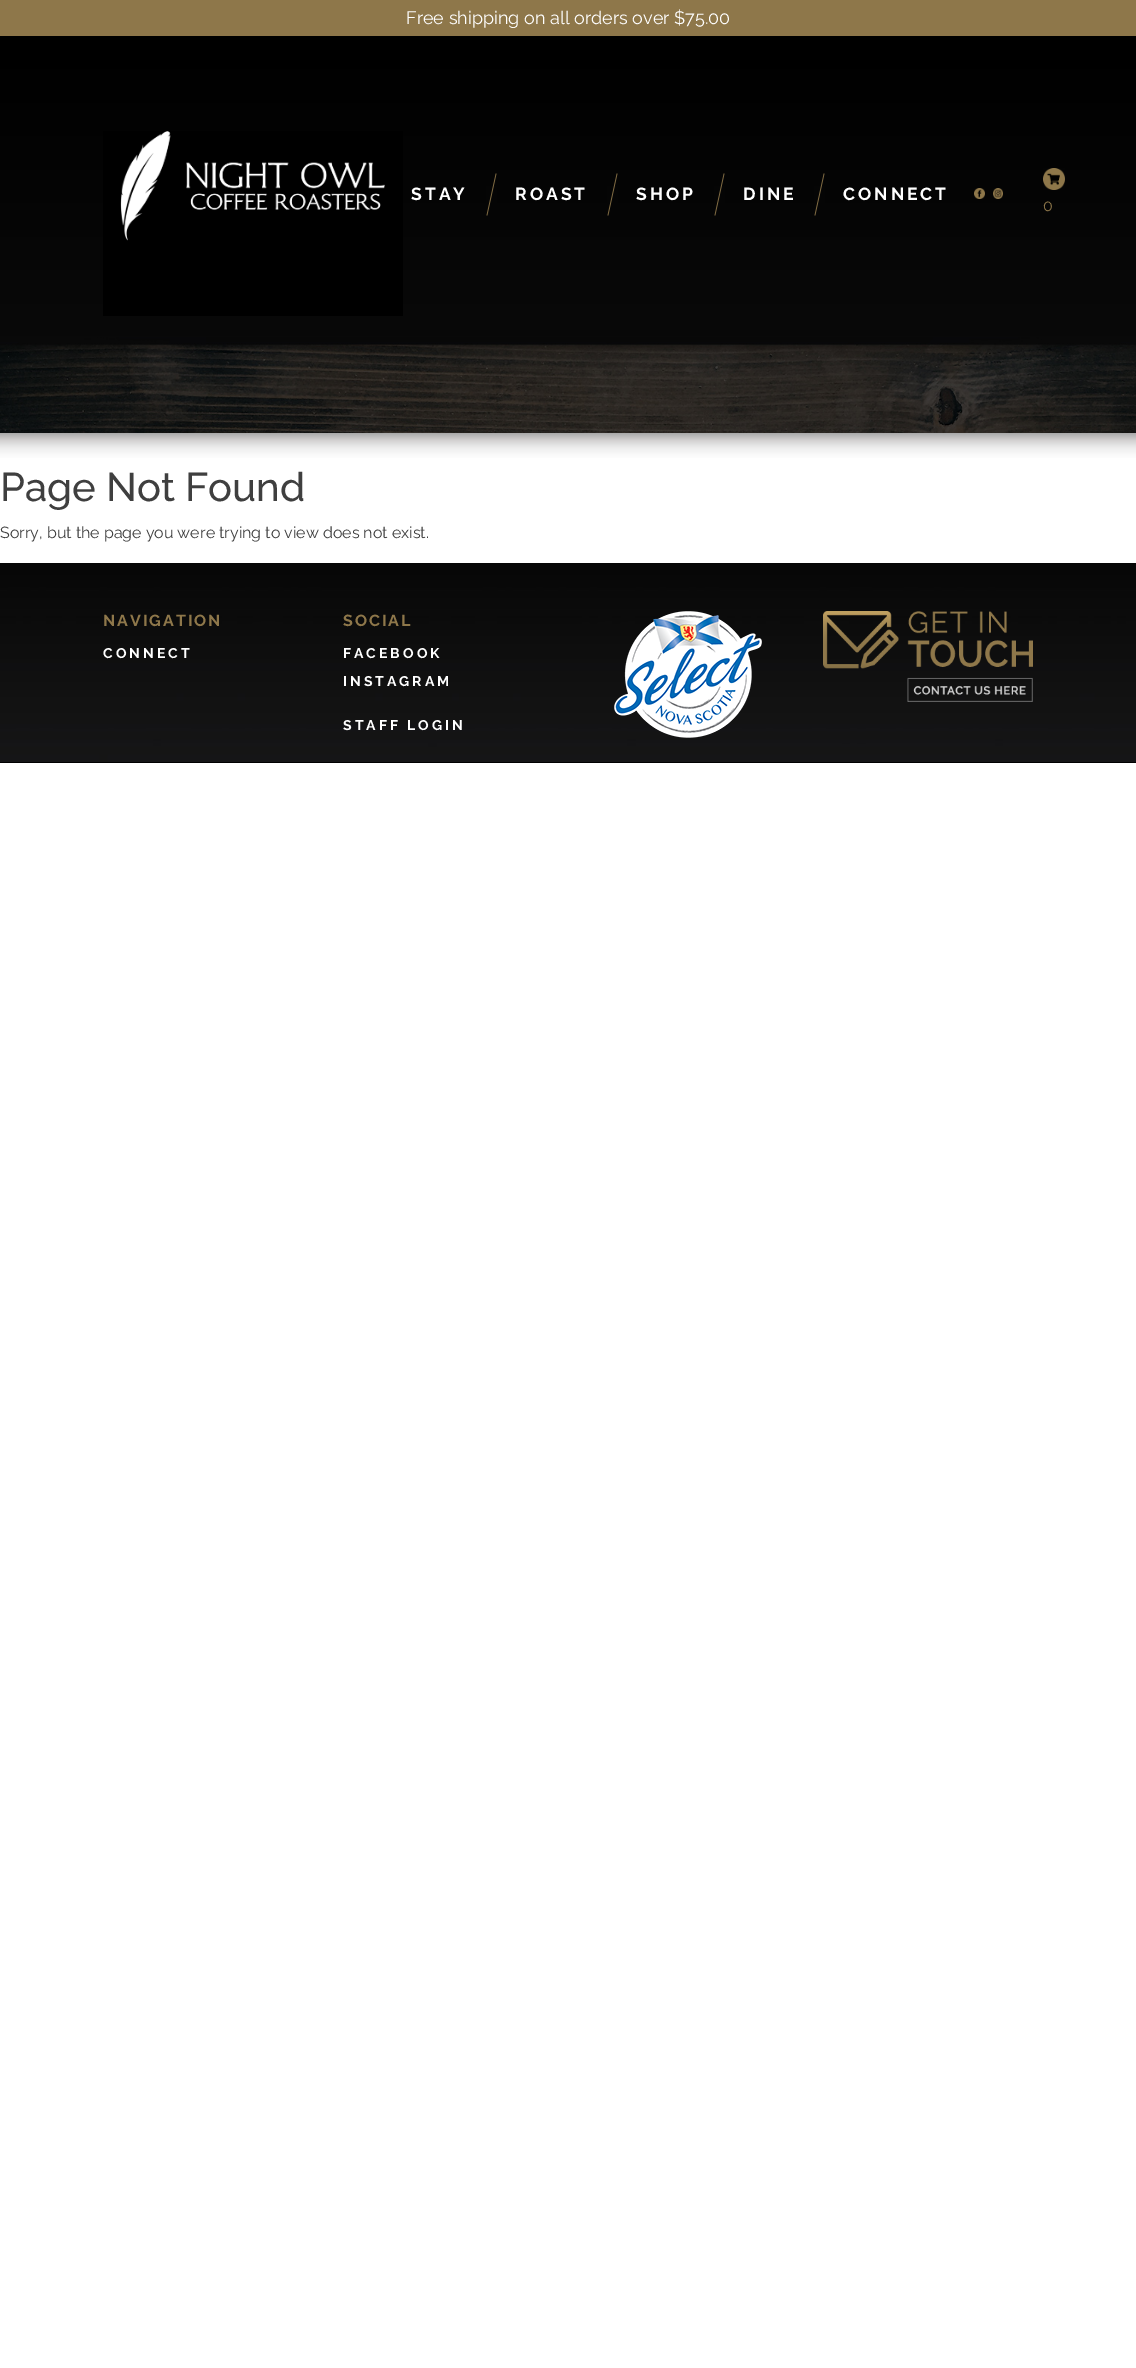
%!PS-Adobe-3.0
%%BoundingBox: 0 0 1136 2368
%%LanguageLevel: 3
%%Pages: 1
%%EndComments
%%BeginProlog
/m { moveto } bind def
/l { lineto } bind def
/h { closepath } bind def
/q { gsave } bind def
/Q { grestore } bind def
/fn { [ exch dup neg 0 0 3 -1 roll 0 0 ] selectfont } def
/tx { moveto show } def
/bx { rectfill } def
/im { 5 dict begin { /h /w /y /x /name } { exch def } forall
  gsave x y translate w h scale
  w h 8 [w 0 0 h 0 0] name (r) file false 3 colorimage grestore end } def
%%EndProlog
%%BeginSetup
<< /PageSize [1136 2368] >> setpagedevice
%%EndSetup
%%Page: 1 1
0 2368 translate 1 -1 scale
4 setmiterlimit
1 setgray
0 0 1136 2368 bx
0.557 0.467 0.29 setrgbcolor
0 0 1136 36 bx
/Raleway-Regular 18 fn
1 setgray
(Free shipping on all orders over $75.00) 406 24 tx
q 0 36 m 1136 36 l 1136 337 l 0 337 l h clip newpath
<< /ShadingType 2 /ColorSpace /DeviceRGB /Coords [568 36 568 337] /Extend [true true] /Function << /FunctionType 2 /Domain [0 1] /C0 [0 0 0] /C1 [0.035 0.035 0.035] /N 1 >> >> shfill Q
(image0.raw) 103 131 300 185 im
/Raleway-Bold 17.5 fn
411 200 m 3 0 (STAY) ashow
(image1.raw) 486 173 11 43 im
515 200 m 3 0 (ROAST) ashow
(image1.raw) 607 173 11 43 im
636 200 m 3 0 (SHOP) ashow
(image1.raw) 714 173 11 43 im
743 200 m 3 0 (DINE) ashow
(image1.raw) 814 173 11 43 im
843 200 m 3 0 (CONNECT) ashow
(image2.raw) 974 188 11 11 im
(image3.raw) 993 188 10 11 im
(image4.raw) 1043 168 22 22 im
/Raleway-Regular 16 fn
0.557 0.467 0.29 setrgbcolor
(0) 1043 211 tx
(image5.raw) 0 337 1136 96 im
q 0 433 m 1136 433 l 1136 458 l 0 458 l h clip newpath
<< /ShadingType 2 /ColorSpace /DeviceRGB /Coords [568 433 568 463] /Extend [true true] /Function << /FunctionType 3 /Domain [0 1] /Functions [<< /FunctionType 2 /Domain [0 1] /C0 [0.659 0.659 0.659] /C1 [0.831 0.824 0.824] /N 1 >> << /FunctionType 2 /Domain [0 1] /C0 [0.831 0.824 0.824] /C1 [0.933 0.933 0.933] /N 1 >> << /FunctionType 2 /Domain [0 1] /C0 [0.933 0.933 0.933] /C1 [0.984 0.984 0.984] /N 1 >> << /FunctionType 2 /Domain [0 1] /C0 [0.984 0.984 0.984] /C1 [1 1 1] /N 1 >>] /Bounds [0.25 0.5 0.75] /Encode [0 1 0 1 0 1 0 1] >> >> shfill Q
/Raleway-Medium 40 fn
0.247 setgray
(Page Not Found) 0 501 tx
/Raleway-Regular 16 fn
(Sorry, but the page you were trying to view does not exist.) 0 538 tx
(image6.raw) 0 563 1136 200 im
/Raleway-Bold 16 fn
0.557 0.467 0.29 setrgbcolor
103 626 m 2 0 (NAVIGATION) ashow
/Raleway-Bold 14 fn
1 setgray
103 658 m 3 0 (CONNECT) ashow
/Raleway-Bold 16 fn
0.557 0.467 0.29 setrgbcolor
343 626 m 2 0 (SOCIAL) ashow
/Raleway-Bold 14 fn
1 setgray
343 658 m 3 0 (FACEBOOK) ashow
343 686 m 3 0 (INSTAGRAM) ashow
343 730 m 3 0 (STAFF LOGIN) ashow
(image7.raw) 614 611 148 127 im
(image8.raw) 823 611 210 91 im
showpage
%%EOF
